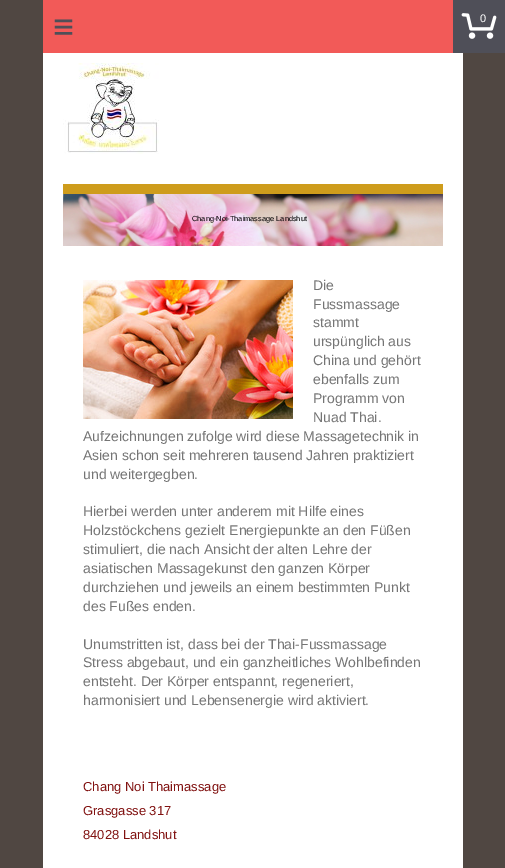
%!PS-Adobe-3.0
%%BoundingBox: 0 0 505 868
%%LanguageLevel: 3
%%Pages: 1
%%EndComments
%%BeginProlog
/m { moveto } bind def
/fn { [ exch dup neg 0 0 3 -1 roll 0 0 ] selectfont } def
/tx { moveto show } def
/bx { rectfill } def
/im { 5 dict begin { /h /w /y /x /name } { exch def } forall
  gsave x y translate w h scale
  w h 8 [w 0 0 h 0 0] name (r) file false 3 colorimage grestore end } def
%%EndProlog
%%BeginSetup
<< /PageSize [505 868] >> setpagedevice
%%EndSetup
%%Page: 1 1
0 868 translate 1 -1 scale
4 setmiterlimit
0.314 0.278 0.259 setrgbcolor
0 0 505 868 bx
0.949 0.353 0.345 setrgbcolor
43 0 410 53 bx
/LiberationSans-Regular 36 fn
0.31 0.31 0.345 setrgbcolor
53 39 m 10 0 (≡) ashow
453 0 52 53 bx
(image0.raw) 461 13 36 26 im
/LiberationSans-Regular 11 fn
1 setgray
(0) 480 22 tx
43 53 420 815 bx
(image1.raw) 63 63 96 91 im
0.808 0.612 0.11 setrgbcolor
63 184 380 10 bx
(image2.raw) 63 194 380 52 im
/LiberationSans-Regular 7.4 fn
0 setgray
(Chang-Noi-Thaimassage Landshut) 192 221 tx
/LiberationSans-Regular 14 fn
0.459 setgray
(Die) 313 290 tx
(Fussmassage) 313 309 tx
(stammt) 313 327 tx
(urspünglich aus) 313 346 tx
(China und gehört) 313 365 tx
(ebenfalls zum) 313 384 tx
(Programm von) 313 403 tx
(Nuad Thai.) 313 422 tx
(Aufzeichnungen zufolge wird diese Massagetechnik in) 83 441 tx
(Asien schon seit mehreren tausend Jahren praktiziert) 83 460 tx
(und weitergegben.) 83 479 tx
(Hierbei werden unter anderem mit Hilfe eines) 83 516 tx
(Holzstöckchens gezielt Energiepunkte an den Füßen) 83 535 tx
(stimuliert, die nach Ansicht der alten Lehre der) 83 554 tx
(asiatischen Massagekunst den ganzen Körper) 83 573 tx
(durchziehen und jeweils an einem bestimmten Punkt) 83 592 tx
(des Fußes enden.) 83 611 tx
(Unumstritten ist, dass bei der Thai-Fussmassage) 83 649 tx
(Stress abgebaut, und ein ganzheitliches Wohlbefinden) 83 667 tx
(entsteht. Der Körper entspannt, regeneriert,) 83 686 tx
(harmonisiert und Lebensenergie wird aktiviert.) 83 705 tx
(image3.raw) 83 280 210 139 im
/LiberationSans-Regular 13 fn
0.506 0.071 0.067 setrgbcolor
(Chang Noi Thaimassage) 83 791 tx
(Grasgasse 317) 83 815 tx
(84028 Landshut) 83 839 tx
showpage
%%EOF
